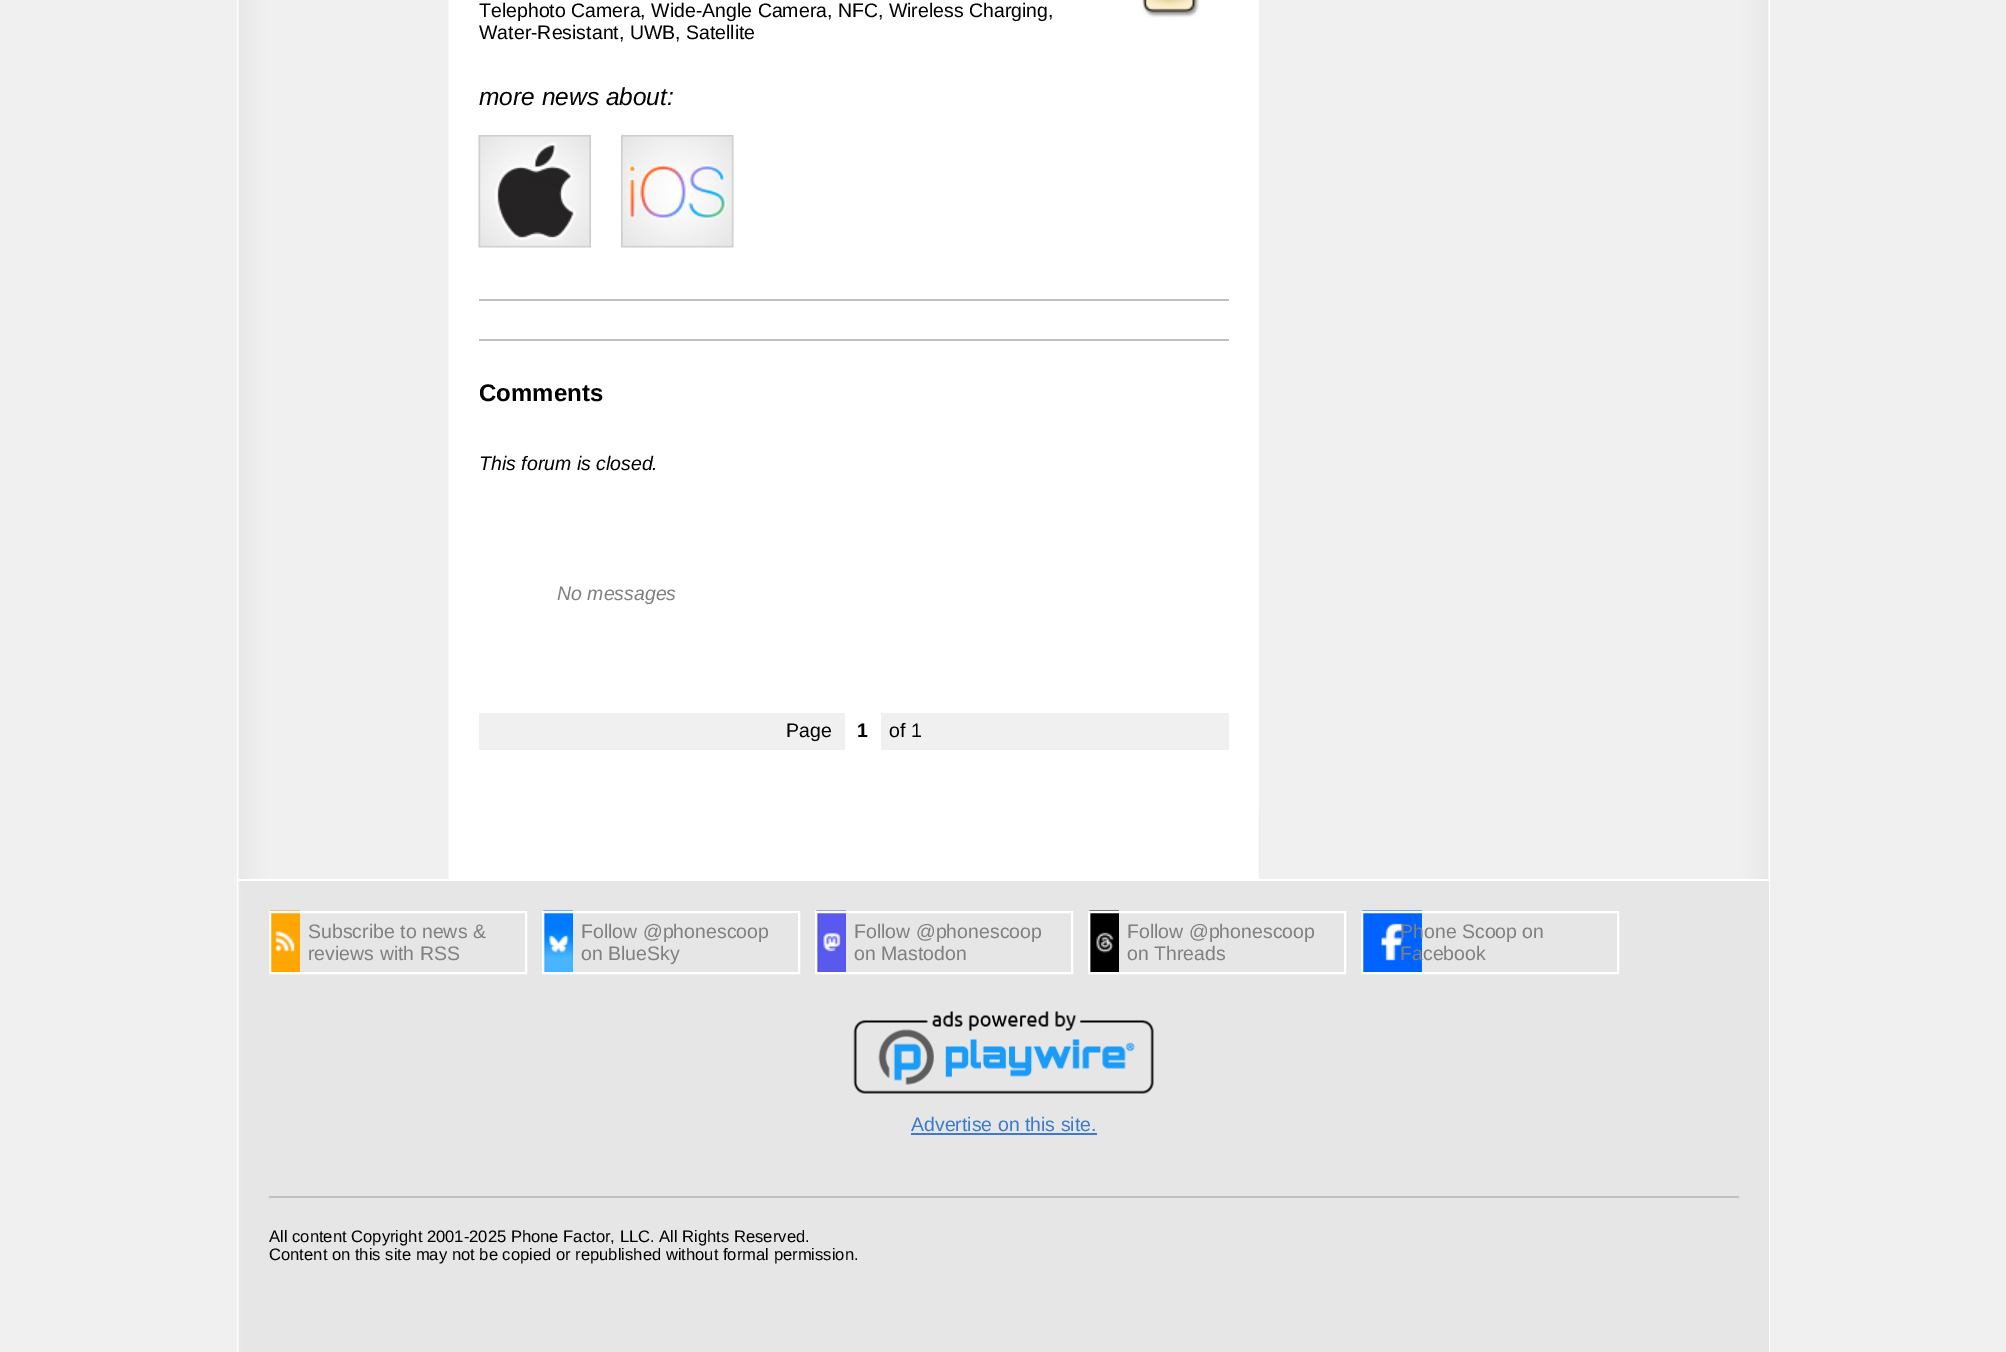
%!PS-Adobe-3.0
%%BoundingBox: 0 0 2006 1352
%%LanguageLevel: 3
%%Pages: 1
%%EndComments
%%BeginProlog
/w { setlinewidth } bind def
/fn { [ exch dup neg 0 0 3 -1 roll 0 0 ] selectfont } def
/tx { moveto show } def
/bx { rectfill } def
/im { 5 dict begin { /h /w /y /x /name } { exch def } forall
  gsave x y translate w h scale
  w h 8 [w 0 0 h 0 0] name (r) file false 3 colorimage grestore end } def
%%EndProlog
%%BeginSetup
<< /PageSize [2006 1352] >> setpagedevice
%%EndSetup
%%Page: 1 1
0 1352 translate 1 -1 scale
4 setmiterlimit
0.941 setgray
0 0 2006 1352 bx
(image0.raw) 237 0 1533 1352 im
1 setgray
1258 0 1 810 bx
/Arimo-Regular 19.5 fn
0 setgray
(Telephoto Camera, Wide-Angle Camera, NFC, Wireless Charging,) 479 17 tx
(Water-Resistant, UWB, Satellite) 479 39 tx
(image1.raw) 1142 0 58 18 im
/Arimo-Italic 24.5 fn
(more news about:) 479 105 tx
(image2.raw) 478 135 113 113 im
(image3.raw) 621 135 113 113 im
0.753 setgray
479 299 750 2 bx
479 339 750 2 bx
/Arimo-Bold 24 fn
0 setgray
(Comments) 479 401 tx
/Arimo-Italic 19.5 fn
(This forum is closed.) 479 470 tx
0.502 setgray
(No messages) 557 600 tx
0.941 setgray
479 713 750 37 bx
/Arimo-Regular 19.5 fn
0 setgray
(Page) 786 737 tx
1 setgray
845 713 36 37 bx
/Arimo-Bold 19.5 fn
0 setgray
(1) 857 737 tx
/Arimo-Regular 19.5 fn
(of 1) 889 737 tx
0.902 setgray
241 881 1528 471 bx
1 setgray
239 879 1530 2 bx
(image4.raw) 270 910 30 62 im
2 w
270 912 256 61 rectstroke
0.502 setgray
(Subscribe to news &) 308 938 tx
(reviews with RSS) 308 960 tx
(image5.raw) 543 910 30 62 im
1 setgray
543 912 256 61 rectstroke
0.502 setgray
(Follow @phonescoop) 581 938 tx
(on BlueSky) 581 960 tx
(image6.raw) 816 910 30 62 im
1 setgray
816 912 256 61 rectstroke
0.502 setgray
(Follow @phonescoop) 854 938 tx
(on Mastodon) 854 960 tx
(image7.raw) 1089 910 30 62 im
1 setgray
1089 912 256 61 rectstroke
0.502 setgray
(Follow @phonescoop) 1127 938 tx
(on Threads) 1127 960 tx
(image8.raw) 1362 910 60 62 im
1 setgray
1362 912 256 61 rectstroke
0.502 setgray
(Phone Scoop on) 1400 938 tx
(Facebook) 1400 960 tx
(image9.raw) 853 1011 301 83 im
0.239 0.475 0.8 setrgbcolor
(Advertise on this site.) 911 1131 tx
911 1133 186 2 bx
0.753 setgray
269 1196 1470 2 bx
/Arimo-Regular 16.6 fn
0 setgray
(All content Copyright 2001-2025 Phone Factor, LLC. All Rights Reserved.) 269 1242 tx
(Content on this site may not be copied or republished without formal permission.) 269 1260 tx
showpage
%%EOF
